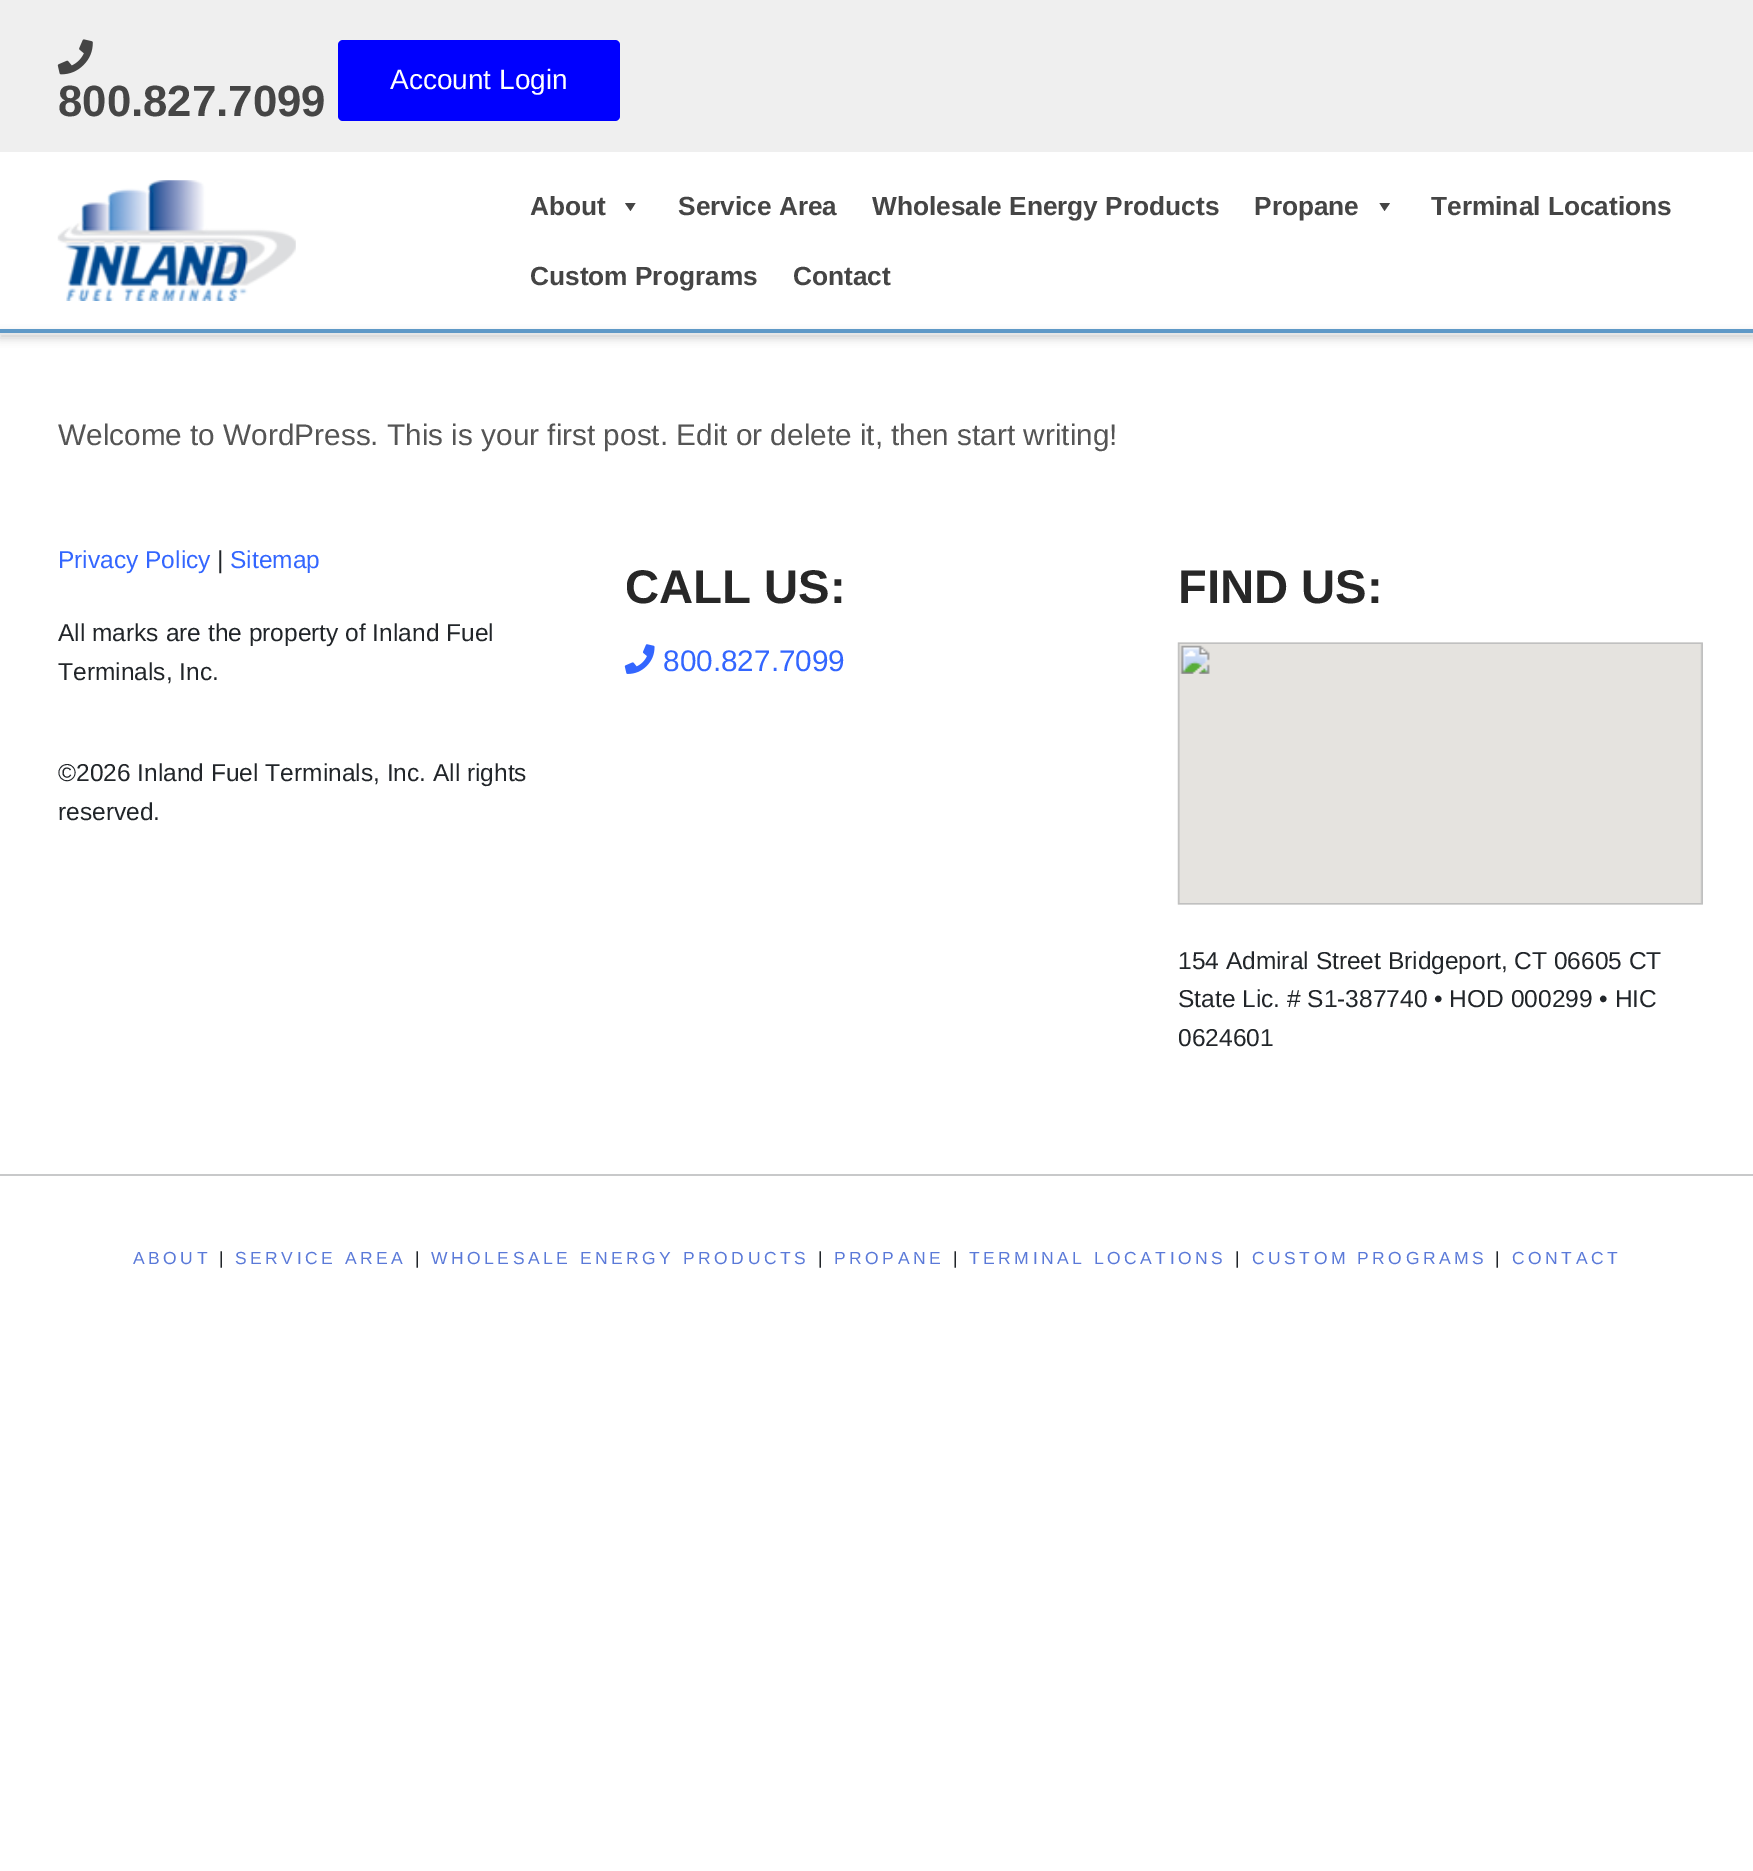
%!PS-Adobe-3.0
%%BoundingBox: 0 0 1753 1871
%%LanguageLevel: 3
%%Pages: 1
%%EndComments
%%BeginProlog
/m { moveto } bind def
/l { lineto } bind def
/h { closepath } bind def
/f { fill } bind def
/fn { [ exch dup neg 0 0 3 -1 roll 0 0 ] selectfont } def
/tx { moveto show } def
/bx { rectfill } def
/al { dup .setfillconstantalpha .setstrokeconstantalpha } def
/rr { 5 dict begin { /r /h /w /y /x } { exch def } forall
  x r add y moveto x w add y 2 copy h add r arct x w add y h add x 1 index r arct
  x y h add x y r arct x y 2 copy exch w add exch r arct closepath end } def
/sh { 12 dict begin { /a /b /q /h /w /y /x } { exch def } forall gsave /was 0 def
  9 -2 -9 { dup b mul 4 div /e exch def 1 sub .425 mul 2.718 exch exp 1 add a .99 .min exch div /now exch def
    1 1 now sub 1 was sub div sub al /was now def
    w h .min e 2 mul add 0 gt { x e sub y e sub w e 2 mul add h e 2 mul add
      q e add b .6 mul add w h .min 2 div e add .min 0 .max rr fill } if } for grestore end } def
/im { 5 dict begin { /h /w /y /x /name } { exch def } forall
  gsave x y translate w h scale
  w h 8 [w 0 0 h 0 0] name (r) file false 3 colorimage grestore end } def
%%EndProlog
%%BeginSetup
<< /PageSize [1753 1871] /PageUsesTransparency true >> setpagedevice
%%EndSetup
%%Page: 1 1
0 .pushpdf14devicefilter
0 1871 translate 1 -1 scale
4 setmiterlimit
1 setgray
0 0 1753 1871 bx
0.937 setgray
0 0 1753 152 bx
0 0 1 setrgbcolor
338 40 282 81 5 rr f
/Arimo-Regular 28 fn
1 setgray
(Account Login) 390 89 tx
(image0.raw) 57 39 36 36 im
/Arimo-Bold 43.75 fn
0.271 setgray
(800.827.7099) 58 116 tx
(image1.raw) 57 180 239 121 im
/Arimo-Bold 26.25 fn
(About) 530 215 tx
635.5 203 m 630.5 211 l 625 203 l h f
(Service Area) 678 215 tx
(Wholesale Energy Products) 872 215 tx
(Propane) 1254 215 tx
1390 203 m 1384.5 211 l 1379.5 203 l h f
(Terminal Locations) 1431 215 tx
(Custom Programs) 530 285 tx
(Contact) 793 285 tx
0.8 setgray
0 334 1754 4 0 4.5 1 sh
0.373 0.6 0.78 setrgbcolor
0 329 1753 4 bx
/Arimo-Regular 29.75 fn
0.333 setgray
(Welcome to WordPress. This is your first post. Edit or delete it, then start writing!) 58 445 tx
/Arimo-Regular 24.5 fn
0.2 0.4 1 setrgbcolor
(Privacy Policy) 58 568 tx
0.129 0.145 0.161 setrgbcolor
(|) 217 568 tx
0.2 0.4 1 setrgbcolor
(Sitemap) 230 568 tx
0.129 0.145 0.161 setrgbcolor
(All marks are the property of Inland Fuel) 58 641 tx
(Terminals, Inc.) 58 680 tx
(©2026 Inland Fuel Terminals, Inc. All rights) 58 781 tx
(reserved.) 58 820 tx
/Arimo-Bold 47.25 fn
0.153 setgray
(CALL US:) 625 603 tx
(image2.raw) 624 644 31 30 im
/Arimo-Regular 29.75 fn
0.2 0.4 1 setrgbcolor
(800.827.7099) 663 671 tx
/Arimo-Bold 47.25 fn
0.153 setgray
(FIND US:) 1178 603 tx
(image3.raw) 1177 642 526 263 im
/Arimo-Regular 24.5 fn
0.129 0.145 0.161 setrgbcolor
(154 Admiral Street Bridgeport, CT 06605 CT) 1178 969 tx
(State Lic. # S1-387740 • HOD 000299 • HIC) 1178 1007 tx
(0624601) 1178 1046 tx
0.784 0.788 0.792 setrgbcolor
0 1174 1753 2 bx
/Arimo-Regular 17.5 fn
0.353 0.475 0.847 setrgbcolor
133 1264 m 3.5 0 (ABOUT) ashow
0.129 0.145 0.161 setrgbcolor
219 1264 m 3.5 0 (|) ashow
0.353 0.475 0.847 setrgbcolor
235 1264 m 3.5 0 (SERVICE AREA) ashow
0.129 0.145 0.161 setrgbcolor
415 1264 m 3.5 0 (|) ashow
0.353 0.475 0.847 setrgbcolor
431 1264 m 3.5 0 (WHOLESALE ENERGY PRODUCTS) ashow
0.129 0.145 0.161 setrgbcolor
818 1264 m 3.5 0 (|) ashow
0.353 0.475 0.847 setrgbcolor
834 1264 m 3.5 0 (PROPANE) ashow
0.129 0.145 0.161 setrgbcolor
953 1264 m 3.5 0 (|) ashow
0.353 0.475 0.847 setrgbcolor
969 1264 m 3.5 0 (TERMINAL LOCATIONS) ashow
0.129 0.145 0.161 setrgbcolor
1235 1264 m 3.5 0 (|) ashow
0.353 0.475 0.847 setrgbcolor
1252 1264 m 3.5 0 (CUSTOM PROGRAMS) ashow
0.129 0.145 0.161 setrgbcolor
1495 1264 m 3.5 0 (|) ashow
0.353 0.475 0.847 setrgbcolor
1512 1264 m 3.5 0 (CONTACT) ashow
.poppdf14devicefilter showpage
%%EOF
